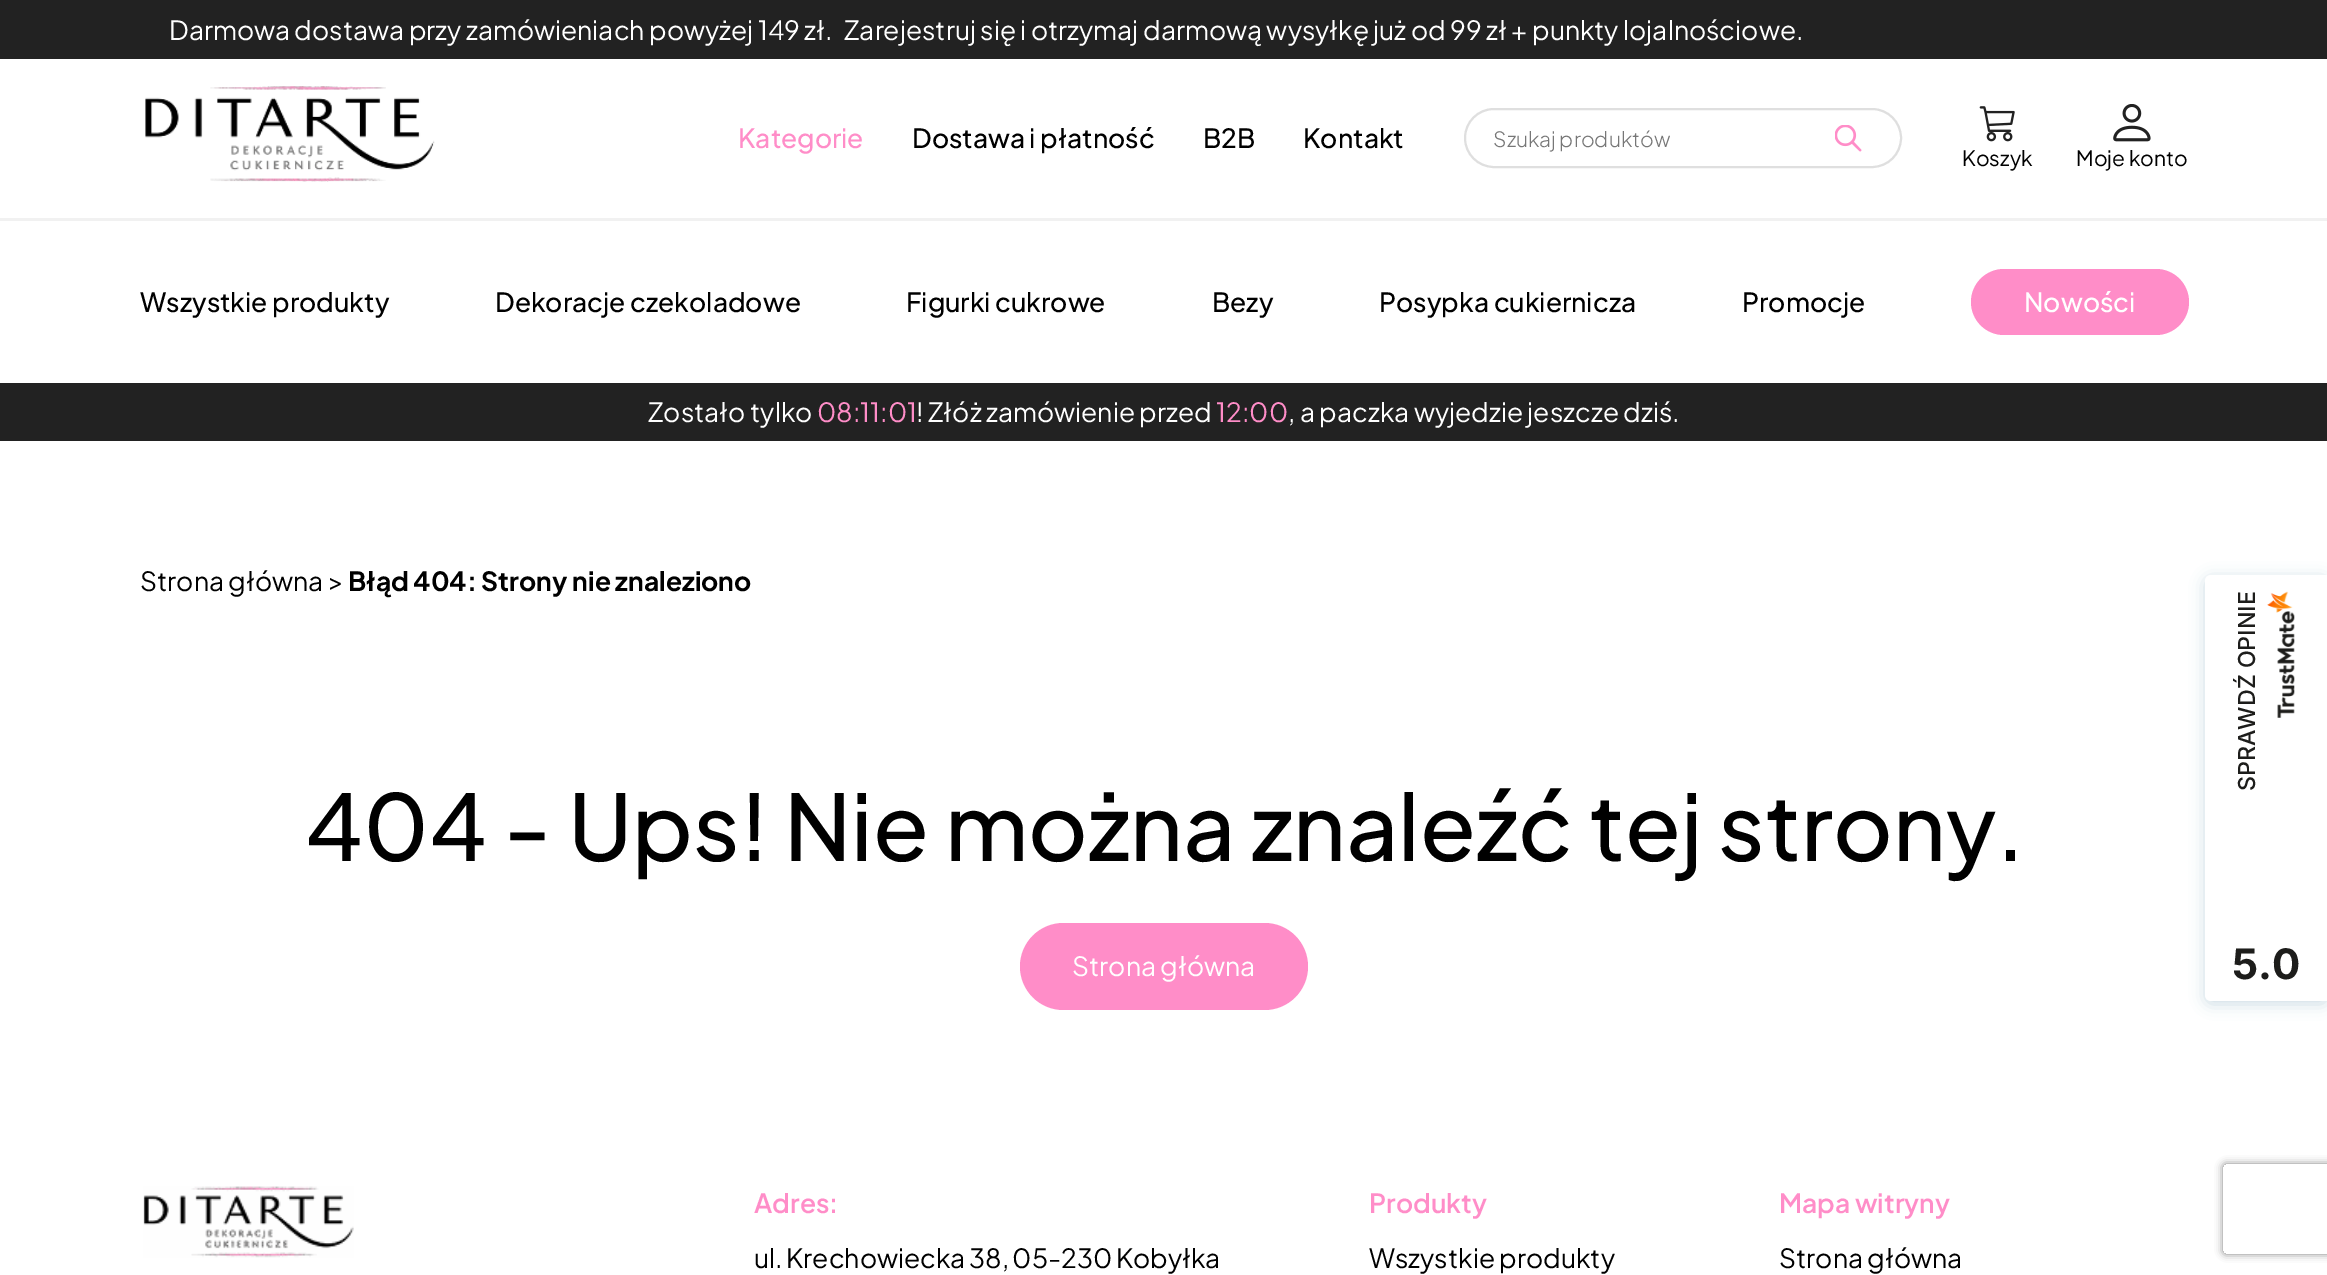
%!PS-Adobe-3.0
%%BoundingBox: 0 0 2327 1275
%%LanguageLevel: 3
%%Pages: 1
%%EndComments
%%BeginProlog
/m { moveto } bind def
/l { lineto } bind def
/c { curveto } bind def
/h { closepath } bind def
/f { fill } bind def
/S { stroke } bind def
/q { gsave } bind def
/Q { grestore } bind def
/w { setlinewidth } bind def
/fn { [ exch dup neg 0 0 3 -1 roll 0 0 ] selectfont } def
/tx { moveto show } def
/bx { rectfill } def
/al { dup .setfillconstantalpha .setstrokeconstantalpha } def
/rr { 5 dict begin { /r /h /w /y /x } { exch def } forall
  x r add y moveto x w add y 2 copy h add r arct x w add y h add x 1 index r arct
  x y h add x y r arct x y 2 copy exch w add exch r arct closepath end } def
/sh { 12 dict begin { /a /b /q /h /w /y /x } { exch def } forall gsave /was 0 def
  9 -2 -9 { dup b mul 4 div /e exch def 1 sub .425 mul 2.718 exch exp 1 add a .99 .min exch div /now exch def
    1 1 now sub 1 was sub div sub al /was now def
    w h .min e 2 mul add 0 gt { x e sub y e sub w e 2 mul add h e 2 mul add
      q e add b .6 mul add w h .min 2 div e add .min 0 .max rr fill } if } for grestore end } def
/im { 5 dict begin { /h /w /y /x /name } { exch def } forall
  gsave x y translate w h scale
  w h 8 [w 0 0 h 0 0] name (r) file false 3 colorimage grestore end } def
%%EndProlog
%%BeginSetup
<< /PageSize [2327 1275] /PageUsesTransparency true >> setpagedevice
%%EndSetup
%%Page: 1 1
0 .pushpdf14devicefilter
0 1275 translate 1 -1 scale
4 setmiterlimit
1 setgray
0 0 2327 1275 bx
0.133 setgray
0 0 2327 59 bx
/PlusJakartaSans-Regular 26.4 fn
1 setgray
(Darmowa dostawa przy zamówieniach powyżej 149 zł.) 169 40 tx
(Zarejestruj się i otrzymaj darmową wysyłkę już od 99 zł + punkty lojalnościowe.) 844 40 tx
0.945 setgray
0 218 2327 3 bx
(image0.raw) 145 86 290 96 im
/PlusJakartaSans-Medium 26.4 fn
1 0.553 0.784 setrgbcolor
(Kategorie) 738 148 tx
0 setgray
(Dostawa i płatność) 912 148 tx
(B2B) 1203 148 tx
(Kontakt) 1303 148 tx
0.875 setgray
2 w
1465 109 436 58 29 rr S
/PlusJakartaSans-Light 21 fn
0.467 setgray
(Szukaj produktów) 1493 147 tx
(image1.raw) 1835 125 27 27 im
(image2.raw) 1979 106 36 36 im
/PlusJakartaSans-Regular 21 fn
0 setgray
(Koszyk) 1962 166 tx
(image3.raw) 2113 104 38 38 im
(Moje konto) 2076 166 tx
/PlusJakartaSans-Medium 26.4 fn
(Wszystkie produkty) 140 312 tx
(Dekoracje czekoladowe) 495 312 tx
(Figurki cukrowe) 906 312 tx
(Bezy) 1212 312 tx
(Posypka cukiernicza) 1379 312 tx
(Promocje) 1742 312 tx
1 0.553 0.784 setrgbcolor
1971 269 218 66 33 rr f
1 setgray
(Nowości) 2024 312 tx
0.133 setgray
0 383 2327 58 bx
/PlusJakartaSans-Regular 26.4 fn
1 setgray
(Zostało tylko) 648 422 tx
1 0.553 0.784 setrgbcolor
(08:11:01) 817 422 tx
1 setgray
(! Złóż zamówienie przed) 916 422 tx
1 0.553 0.784 setrgbcolor
(12:00) 1216 422 tx
1 setgray
(, a paczka wyjedzie jeszcze dziś.) 1288 422 tx
0 setgray
(Strona główna >) 140 591 tx
/PlusJakartaSans-Bold 26.4 fn
(Błąd 404: Strony nie znaleziono) 348 591 tx
/PlusJakartaSans-Medium 91.25 fn
(404 - Ups! Nie można znaleźć tej strony.) 305 861 tx
1 0.553 0.784 setrgbcolor
1020 923 288 87 43.5 rr f
/PlusJakartaSans-Regular 26.4 fn
1 setgray
(Strona główna) 1072 976 tx
(image4.raw) 143 1186 211 72 im
/PlusJakartaSans-SemiBold 26.4 fn
1 0.553 0.784 setrgbcolor
(Adres:) 754 1213 tx
/PlusJakartaSans-Regular 26.4 fn
0 setgray
754 1268 m -1 0 32 (ul. Krechowiecka 38, 05-230 Kobyłka) widthshow
/PlusJakartaSans-SemiBold 26.4 fn
1 0.553 0.784 setrgbcolor
(Produkty) 1369 1213 tx
/PlusJakartaSans-Regular 26.4 fn
0 setgray
(Wszystkie produkty) 1369 1268 tx
/PlusJakartaSans-SemiBold 26.4 fn
1 0.553 0.784 setrgbcolor
(Mapa witryny) 1779 1213 tx
/PlusJakartaSans-Regular 26.4 fn
0 setgray
(Strona główna) 1779 1268 tx
0.043 0.337 0.502 setrgbcolor
2205 578 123 426 6 7.5 0.2 sh
1 setgray
2211 575 m 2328 575 l 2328 1001 l 2211 1001 l 2207.5 1001 2205 998.5 2205 995 c 2205 581 l 2205 577.5 2207.5 575 2211 575 c h f
/Inter-Medium 23.25 fn
0.114 0.114 0.106 setrgbcolor
q 2255 791 translate -90 rotate 0 0 m (SPRAWDŹ OPINIE) show Q
(image5.raw) 2267 591 28 127 im
/Inter-Bold 42 fn
(5.0) 2232 979 tx
q
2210 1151 m 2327 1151 l 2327 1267 l 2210 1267 l h 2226 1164 m 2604 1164 l 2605.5 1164 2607 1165.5 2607 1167 c 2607 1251 l 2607 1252.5 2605.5 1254 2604 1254 c 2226 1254 l 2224.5 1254 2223 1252.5 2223 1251 c 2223 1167 l 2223 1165.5 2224.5 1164 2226 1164 c h eoclip newpath
0.502 setgray
2223 1164 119 90 3 4 1 sh
Q
.poppdf14devicefilter showpage
%%EOF
